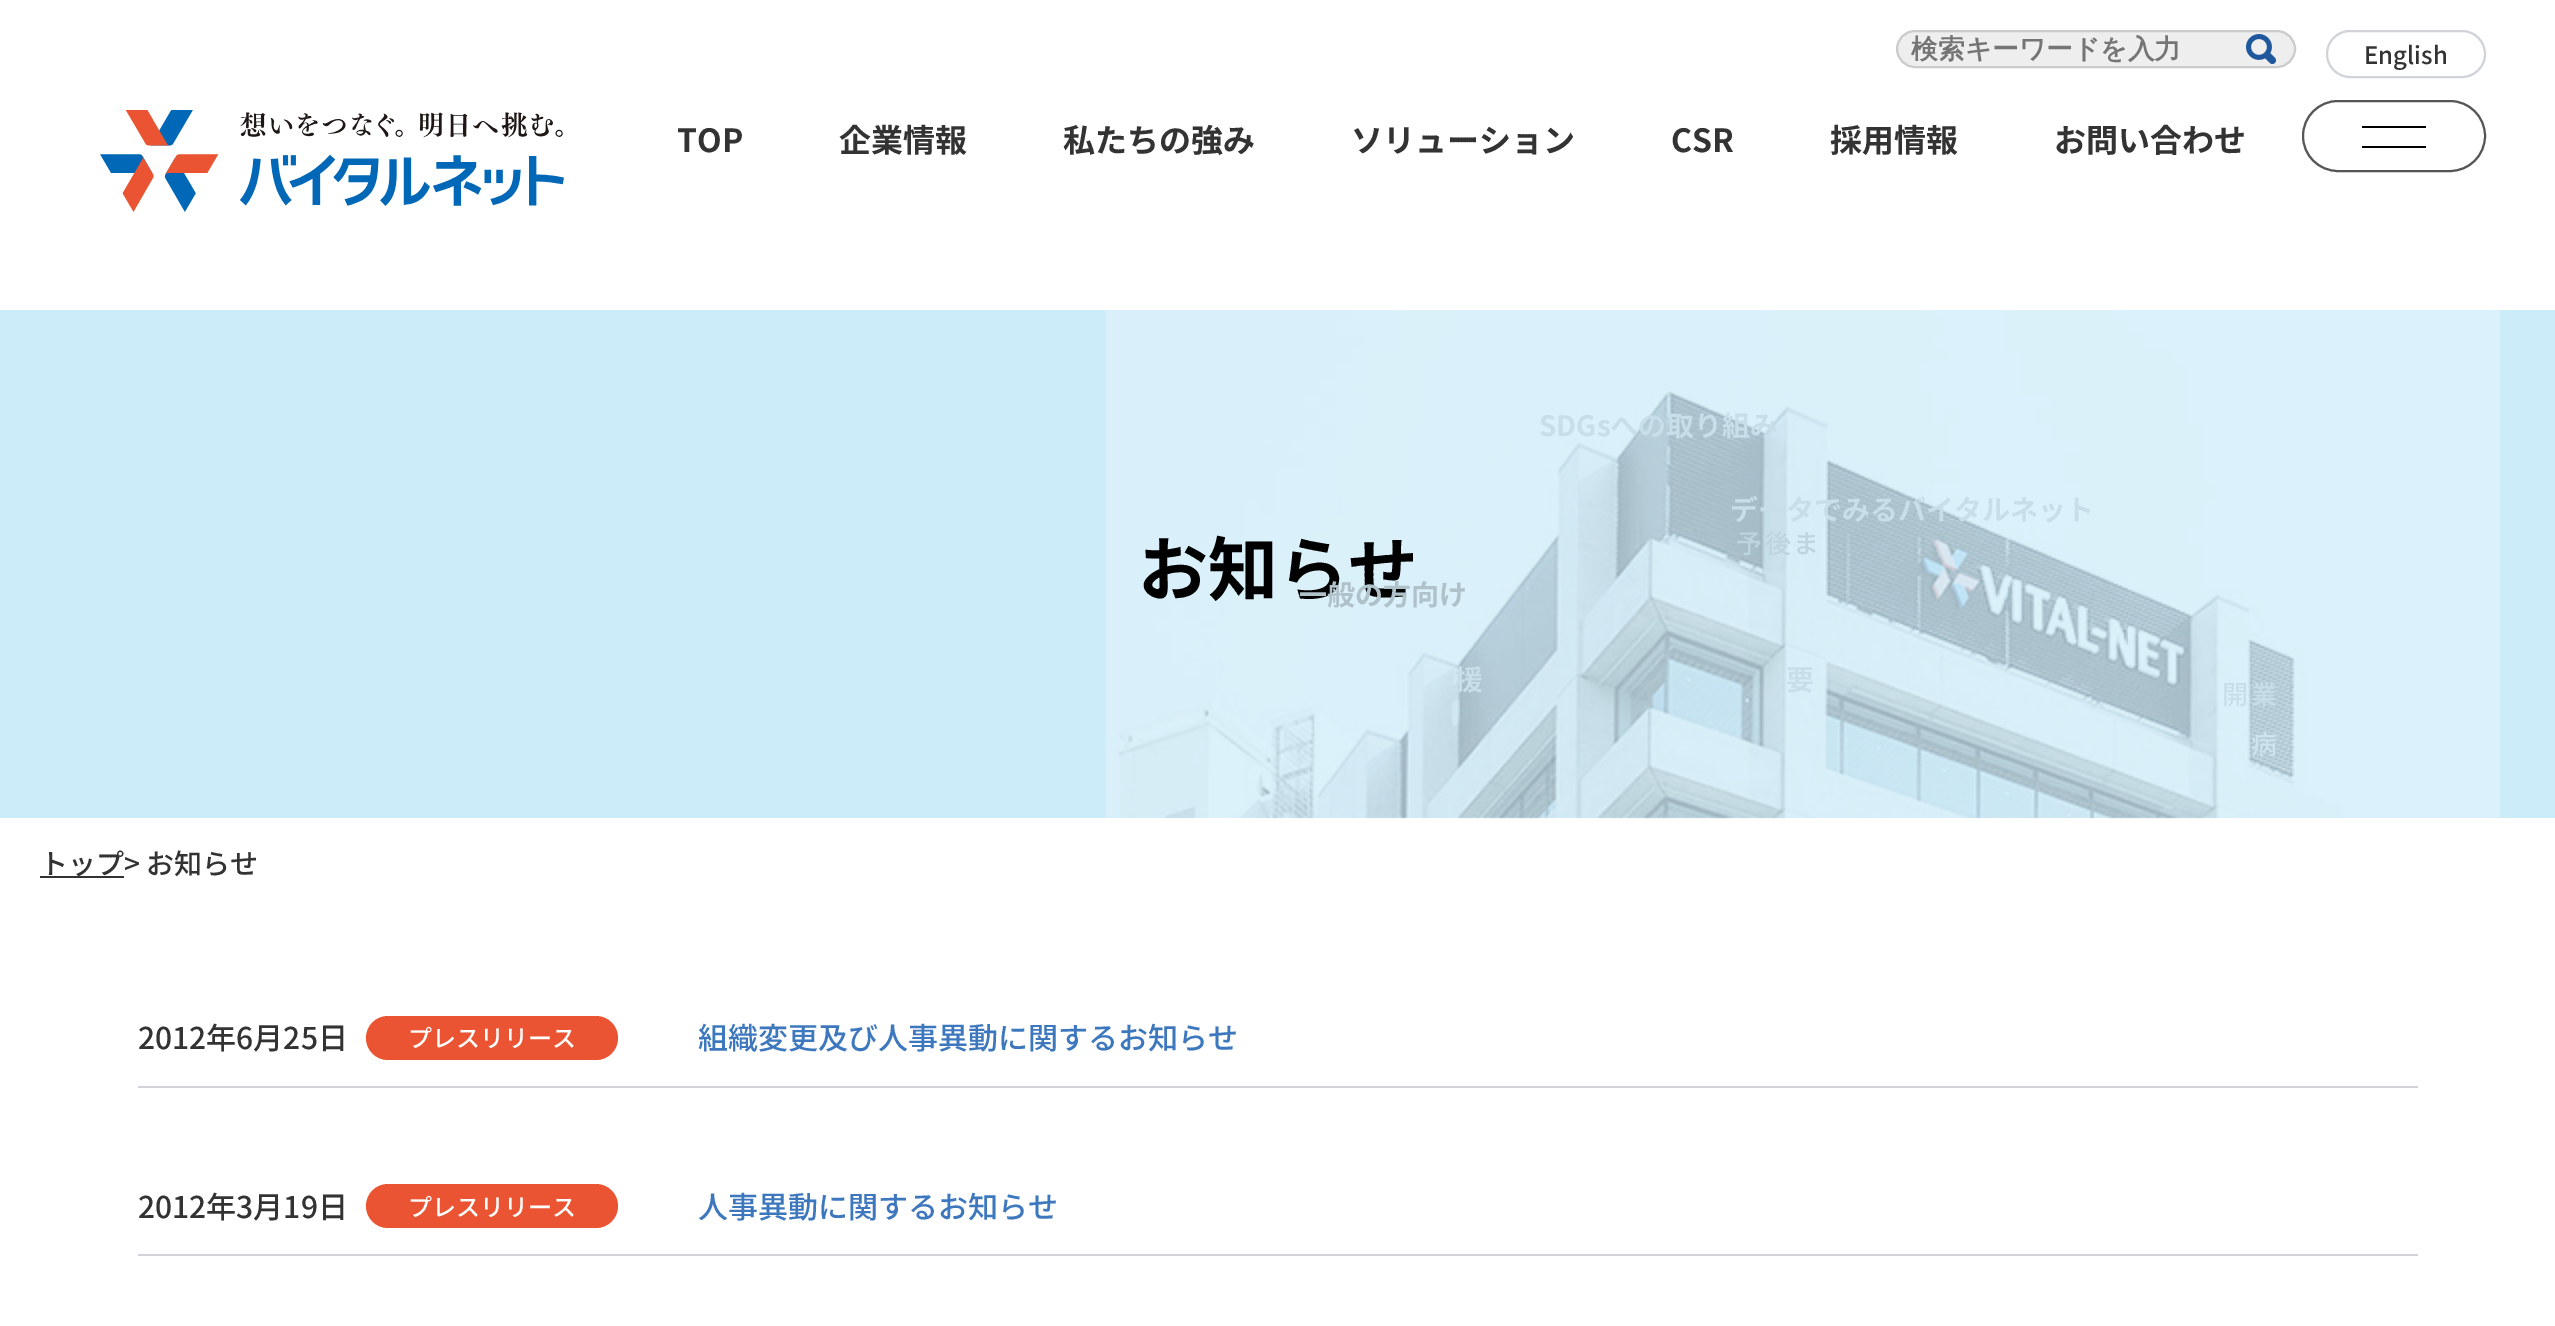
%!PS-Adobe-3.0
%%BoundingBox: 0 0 2555 1326
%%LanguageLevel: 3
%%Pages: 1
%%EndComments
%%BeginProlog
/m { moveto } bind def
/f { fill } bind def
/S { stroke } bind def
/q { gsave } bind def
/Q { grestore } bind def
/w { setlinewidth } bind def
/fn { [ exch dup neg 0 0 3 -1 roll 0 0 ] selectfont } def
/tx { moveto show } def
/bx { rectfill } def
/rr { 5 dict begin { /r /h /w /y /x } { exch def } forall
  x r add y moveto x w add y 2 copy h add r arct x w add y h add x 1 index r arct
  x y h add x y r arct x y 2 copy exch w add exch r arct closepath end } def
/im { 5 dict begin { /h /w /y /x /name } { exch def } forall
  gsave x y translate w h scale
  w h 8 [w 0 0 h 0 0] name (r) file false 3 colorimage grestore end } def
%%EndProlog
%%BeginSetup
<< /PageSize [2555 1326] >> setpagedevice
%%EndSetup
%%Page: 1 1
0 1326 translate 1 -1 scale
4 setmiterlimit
1 setgray
0 0 2555 1326 bx
0.933 setgray
1897 31 398 36 18 rr q f Q
0.8 setgray
2 w
S
/WenQuanYiZenHei-Bold 26.75 fn
0.459 setgray
(検索キーワードを入力) 1911 58 tx
(image0.raw) 2246 34 30 30 im
0.816 0.831 0.847 setrgbcolor
2327 31 158 46 23 rr S
/NotoSansJP-Medium 24 fn
0.2 setgray
(English) 2364 64 tx
(image1.raw) 100 110 464 102 im
/NotoSansJP-Bold 32 fn
(TOP) 677 152 tx
(企業情報) 839 152 tx
(私たちの強み) 1063 152 tx
(ソリューション) 1351 152 tx
0.804 0.925 0.976 setrgbcolor
0 310 2555 508 bx
(image2.raw) 1106 310 1394 509 im
/NotoSansJP-Bold 70 fn
0 setgray
(お知らせ) 1138 595 tx
/NotoSansJP-Bold 28 fn
0.686 0.757 0.788 setrgbcolor
(⼀般の⽅向け) 1299 605 tx
0.784 0.871 0.91 setrgbcolor
(援) 1455 690 tx
/NotoSansJP-Bold 32 fn
0.2 setgray
(CSR) 1671 152 tx
/NotoSansJP-Bold 28 fn
0.784 0.871 0.91 setrgbcolor
(SDGsへの取り組み) 1539 436 tx
/NotoSansJP-Bold 32 fn
0.2 setgray
(採用情報) 1830 152 tx
/NotoSansJP-Bold 28 fn
0.784 0.871 0.91 setrgbcolor
(データでみるバイタルネット) 1730 520 tx
(要) 1786 690 tx
/NotoSansJP-Bold 32 fn
0.2 setgray
(お問い合わせ) 2054 152 tx
0.333 setgray
2303 101 182 70 35 rr S
0 setgray
2362 126 64 2 bx
2362 146 64 2 bx
/NotoSansJP-Medium 26 fn
0.745 0.831 0.875 setrgbcolor
1736 553 m 2.5 0 (予後ま) ashow
0.784 0.871 0.91 setrgbcolor
2222 704 m 2.5 0 (開業) ashow
0.808 0.894 0.933 setrgbcolor
2251 754 m 2.5 0 (病) ashow
0.2 setgray
40 876 84 2 bx
/NotoSansJP-Medium 28 fn
(トップ> お知らせ) 40 874 tx
/NotoSansJP-Medium 30 fn
(2012年6月25日) 138 1049 tx
0.918 0.329 0.196 setrgbcolor
366 1016 252 44 22 rr f
/NotoSansJP-Medium 24 fn
1 setgray
(プレスリリース) 408 1047 tx
0.816 0.831 0.847 setrgbcolor
138 1086 2280 2 bx
/NotoSansJP-Medium 30 fn
0.239 0.467 0.745 setrgbcolor
(組織変更及び人事異動に関するお知らせ) 698 1049 tx
0.2 setgray
(2012年3月19日) 138 1218 tx
0.918 0.329 0.196 setrgbcolor
366 1184 252 44 22 rr f
/NotoSansJP-Medium 24 fn
1 setgray
(プレスリリース) 408 1216 tx
0.816 0.831 0.847 setrgbcolor
138 1254 2280 2 bx
/NotoSansJP-Medium 30 fn
0.239 0.467 0.745 setrgbcolor
(人事異動に関するお知らせ) 698 1218 tx
showpage
%%EOF
